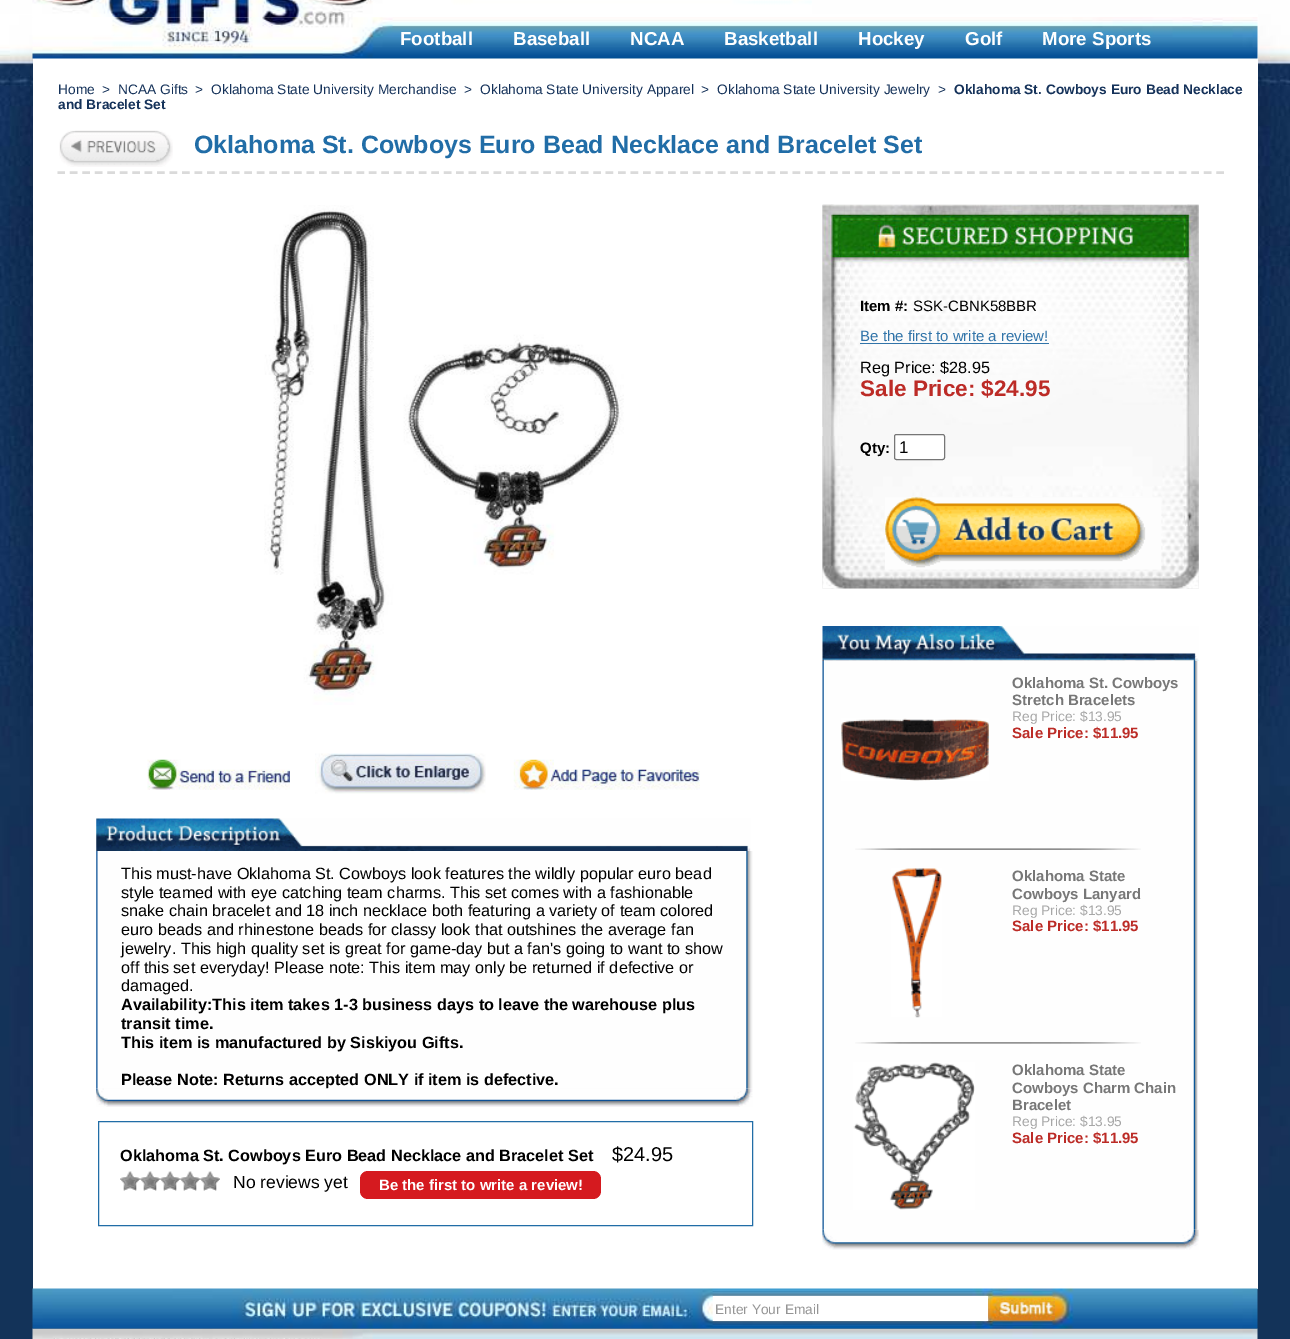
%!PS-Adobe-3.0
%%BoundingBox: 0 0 1290 1339
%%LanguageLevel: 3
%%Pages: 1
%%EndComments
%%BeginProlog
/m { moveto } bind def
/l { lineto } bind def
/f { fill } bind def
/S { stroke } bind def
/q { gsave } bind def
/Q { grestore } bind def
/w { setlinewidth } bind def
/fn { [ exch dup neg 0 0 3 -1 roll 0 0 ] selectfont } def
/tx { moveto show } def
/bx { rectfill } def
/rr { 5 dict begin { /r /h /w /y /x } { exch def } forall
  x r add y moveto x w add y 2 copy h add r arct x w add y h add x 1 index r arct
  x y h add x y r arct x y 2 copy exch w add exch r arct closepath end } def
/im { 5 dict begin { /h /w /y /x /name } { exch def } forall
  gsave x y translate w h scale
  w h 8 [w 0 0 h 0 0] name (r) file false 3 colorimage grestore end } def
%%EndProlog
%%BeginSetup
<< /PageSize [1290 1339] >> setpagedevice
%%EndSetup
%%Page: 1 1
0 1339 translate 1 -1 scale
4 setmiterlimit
0.075 0.2 0.349 setrgbcolor
0 0 1290 1339 bx
(image0.raw) 0 0 1290 14 im
(image1.raw) 0 14 1290 1210 im
1 setgray
33 14 1225 1275 bx
(image2.raw) 32 0 780 18 im
(image3.raw) 32 17 1226 42 im
/LiberationSans-Bold 18.75 fn
(Football) 400 45 tx
(Baseball) 513 45 tx
(NCAA) 630 45 tx
(Basketball) 724 45 tx
(Hockey) 858 45 tx
(Golf) 965 45 tx
(More Sports) 1042 45 tx
/LiberationSans-Regular 13.75 fn
0.082 0.196 0.353 setrgbcolor
(Home) 58 94 tx
(>) 102 94 tx
(NCAA Gifts) 118 94 tx
(>) 195 94 tx
(Oklahoma State University Merchandise) 211 94 tx
(>) 464 94 tx
(Oklahoma State University Apparel) 480 94 tx
(>) 701 94 tx
(Oklahoma State University Jewelry) 717 94 tx
(>) 938 94 tx
/LiberationSans-Bold 13.75 fn
(Oklahoma St. Cowboys Euro Bead Necklace) 954 94 tx
(and Bracelet Set) 58 109 tx
0.855 setgray
2.5 w
[7.5 4.96] 0 setdash
57.5 172.5 m 1224 172.5 l S
(image4.raw) 59 130 114 37 im
/LiberationSans-Bold 25 fn
0.129 0.427 0.655 setrgbcolor
(Oklahoma St. Cowboys Euro Bead Necklace and Bracelet Set) 194 153 tx
(image5.raw) 264 205 360 500 im
(image6.raw) 147 759 143 31 im
(image7.raw) 315 753 171 41 im
(image8.raw) 513 759 187 31 im
(image9.raw) 96 818 655 33 im
(image10.raw) 96 851 657 238 im
/LiberationSans-Regular 16.25 fn
0 setgray
(This must-have Oklahoma St. Cowboys look features the wildly popular euro bead) 121 879 tx
(style teamed with eye catching team charms. This set comes with a fashionable) 121 898 tx
(snake chain bracelet and 18 inch necklace both featuring a variety of team colored) 121 916 tx
(euro beads and rhinestone beads for classy look that outshines the average fan) 121 935 tx
(jewelry. This high quality set is great for game-day but a fan's going to want to show) 121 954 tx
(off this set everyday! Please note: This item may only be returned if defective or) 121 973 tx
(damaged.) 121 991 tx
/LiberationSans-Bold 16.25 fn
(Availability:This item takes 1-3 business days to leave the warehouse plus) 121 1010 tx
(transit time.) 121 1029 tx
(This item is manufactured by Siskiyou Gifts.) 121 1048 tx
(Please Note: Returns accepted ONLY if item is defective.) 121 1085 tx
(image11.raw) 96 1088 657 19 im
0.129 0.427 0.655 setrgbcolor
1 w
[] 0 setdash
98.5 1121.5 654 104 rectstroke
0 setgray
(Oklahoma St. Cowboys Euro Bead Necklace and Bracelet Set) 120 1161 tx
/LiberationSans-Regular 20 fn
($24.95) 612 1161 tx
(image12.raw) 120 1171 100 20 im
/LiberationSans-Regular 17.5 fn
(No reviews yet) 233 1188 tx
0.835 0.102 0.122 setrgbcolor
360 1171 241 28 8 rr f
/LiberationSans-Bold 15 fn
1 setgray
(Be the first to write a review!) 379 1190 tx
(image13.raw) 822 204 377 385 im
(image14.raw) 822 204 377 223 im
(image15.raw) 822 436 377 153 im
0 setgray
(Item #:) 860 311 tx
/LiberationSans-Regular 15 fn
(SSK-CBNK58BBR) 913 311 tx
0.192 0.455 0.663 setrgbcolor
(Be the first to write a review!) 860 341 tx
860 343 189 1 bx
/LiberationSans-Regular 16.25 fn
0 setgray
(Reg Price: $28.95) 860 373 tx
/LiberationSans-Bold 22.5 fn
0.737 0.169 0.149 setrgbcolor
(Sale Price: $24.95) 860 396 tx
/LiberationSans-Bold 15 fn
0 setgray
(Qty:) 860 453 tx
1 setgray
894.5 434.5 50 25 2 rr q f Q
0.463 setgray
S
/LiberationSans-Regular 17 fn
0 setgray
(1) 899 453 tx
(image16.raw) 885 497 277 73 im
(image17.raw) 822 626 377 35 im
(image18.raw) 822 661 376 569 im
/LiberationSans-Bold 15 fn
0.467 setgray
(Oklahoma St. Cowboys) 1012 688 tx
(Stretch Bracelets) 1012 705 tx
/LiberationSans-Regular 13.75 fn
0.655 setgray
(Reg Price: $13.95) 1012 721 tx
/LiberationSans-Bold 15 fn
0.737 0.169 0.149 setrgbcolor
(Sale Price: $11.95) 1012 738 tx
(image19.raw) 841 718 148 63 im
(image20.raw) 855 848 286 2 im
(image21.raw) 891 868 51 150 im
0.467 setgray
(Oklahoma State) 1012 881 tx
(Cowboys Lanyard) 1012 899 tx
/LiberationSans-Regular 13.75 fn
0.655 setgray
(Reg Price: $13.95) 1012 915 tx
/LiberationSans-Bold 15 fn
0.737 0.169 0.149 setrgbcolor
(Sale Price: $11.95) 1012 931 tx
(image22.raw) 855 1042 286 2 im
(image23.raw) 853 1062 122 148 im
0.467 setgray
(Oklahoma State) 1012 1075 tx
(Cowboys Charm Chain) 1012 1093 tx
(Bracelet) 1012 1110 tx
/LiberationSans-Regular 13.75 fn
0.655 setgray
(Reg Price: $13.95) 1012 1126 tx
/LiberationSans-Bold 15 fn
0.737 0.169 0.149 setrgbcolor
(Sale Price: $11.95) 1012 1143 tx
(image24.raw) 822 1229 377 21 im
(image27.raw) 32 1328 1226 11 im
(image25.raw) 32 1288 1226 41 im
1 setgray
713 1296 275 25 bx
/LiberationSans-Regular 13.75 fn
0.584 setgray
(Enter Your Email) 715 1314 tx
(image26.raw) 996 1298 59 22 im
showpage
%%EOF
